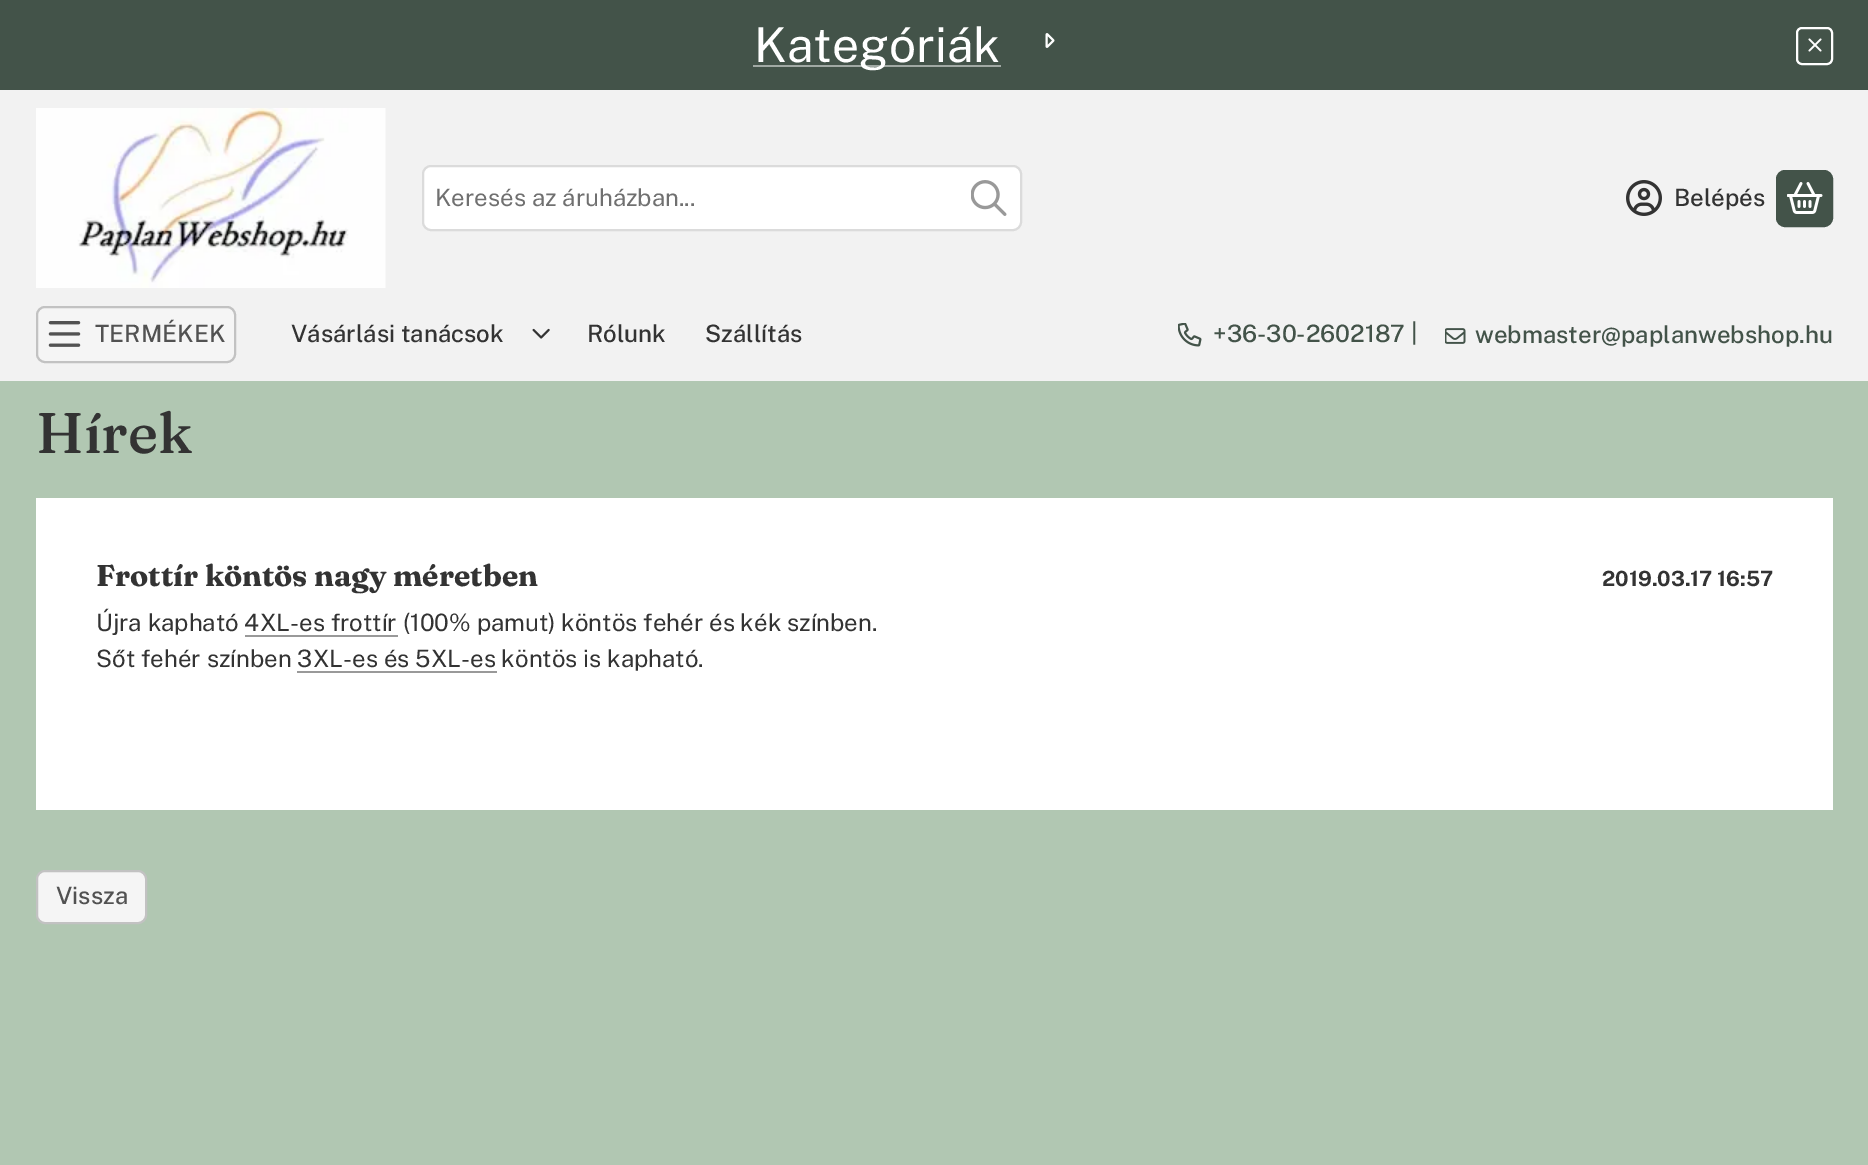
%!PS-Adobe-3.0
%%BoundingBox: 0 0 1868 1165
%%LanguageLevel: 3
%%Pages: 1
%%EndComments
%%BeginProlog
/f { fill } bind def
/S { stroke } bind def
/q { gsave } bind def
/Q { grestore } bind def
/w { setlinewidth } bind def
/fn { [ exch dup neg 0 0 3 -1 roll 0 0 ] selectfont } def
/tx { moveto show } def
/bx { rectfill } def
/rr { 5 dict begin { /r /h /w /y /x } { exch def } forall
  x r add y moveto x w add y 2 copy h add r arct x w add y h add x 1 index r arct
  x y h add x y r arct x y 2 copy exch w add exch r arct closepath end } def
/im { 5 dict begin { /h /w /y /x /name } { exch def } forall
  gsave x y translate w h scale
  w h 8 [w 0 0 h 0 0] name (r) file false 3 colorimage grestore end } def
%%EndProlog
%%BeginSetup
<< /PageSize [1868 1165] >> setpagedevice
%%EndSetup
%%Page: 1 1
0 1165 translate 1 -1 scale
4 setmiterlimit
0.694 0.78 0.698 setrgbcolor
0 0 1868 1165 bx
0.263 0.325 0.286 setrgbcolor
0 0 1868 90 bx
0.631 0.663 0.643 setrgbcolor
753 65 248 2 bx
/PublicSans-Regular 48 fn
1 setgray
(Kategóriák) 754 62 tx
(image0.raw) 1045 33 10 15 im
2 w
1797 28 35 36 5 rr S
(image1.raw) 1808 38 14 14 im
0.949 setgray
0 90 1868 291 bx
(image2.raw) 36 108 350 180 im
1 setgray
423 166 598 64 8 rr q f Q
0.859 setgray
S
/PublicSans-Regular 24 fn
0.439 setgray
(Keresés az áruházban...) 435 206 tx
(image3.raw) 971 180 36 36 im
(image4.raw) 1626 180 36 36 im
/PublicSans-Medium 24 fn
0.2 setgray
(Belépés) 1674 206 tx
0.263 0.325 0.286 setrgbcolor
1777 171 55 55 8 rr q f Q
S
(image5.raw) 1787 182 36 32 im
0.961 setgray
37 307 198 55 8 rr q f Q
0.761 setgray
S
(image6.raw) 48 321 33 26 im
0.322 setgray
(TERMÉKEK) 95 342 tx
0.2 setgray
(Vásárlási tanácsok) 291 342 tx
(image7.raw) 532 328 18 11 im
(Rólunk) 587 342 tx
(Szállítás) 705 342 tx
(image8.raw) 1178 323 24 24 im
0.263 0.325 0.286 setrgbcolor
(+36-30-2602187) 1213 342 tx
(|) 1411 341 tx
(image9.raw) 1445 328 21 16 im
(webmaster@paplanwebshop.hu) 1475 343 tx
/Fraunces-Medium 57 fn
0.2 setgray
(Hírek) 36 453 tx
1 setgray
36 498 1797 312 bx
/Fraunces-Bold 30 fn
0.2 setgray
(Frottír köntös nagy méretben) 96 586 tx
/PublicSans-Bold 21 fn
(2019.03.17 16:57) 1602 586 tx
/PublicSans-Regular 24 fn
(Újra kapható 4XL-es frottír \(100% pamut\) köntös fehér és kék színben.) 96 631 tx
0.6 setgray
245 635 153 2 bx
0.2 setgray
(Sőt fehér színben 3XL-es és 5XL-es köntös is kapható.) 96 667 tx
0.6 setgray
297 671 200 2 bx
0.961 setgray
37 871 109 52 8 rr q f Q
0.761 setgray
S
/PublicSans-Medium 24 fn
0.322 setgray
(Vissza) 56 904 tx
showpage
%%EOF
